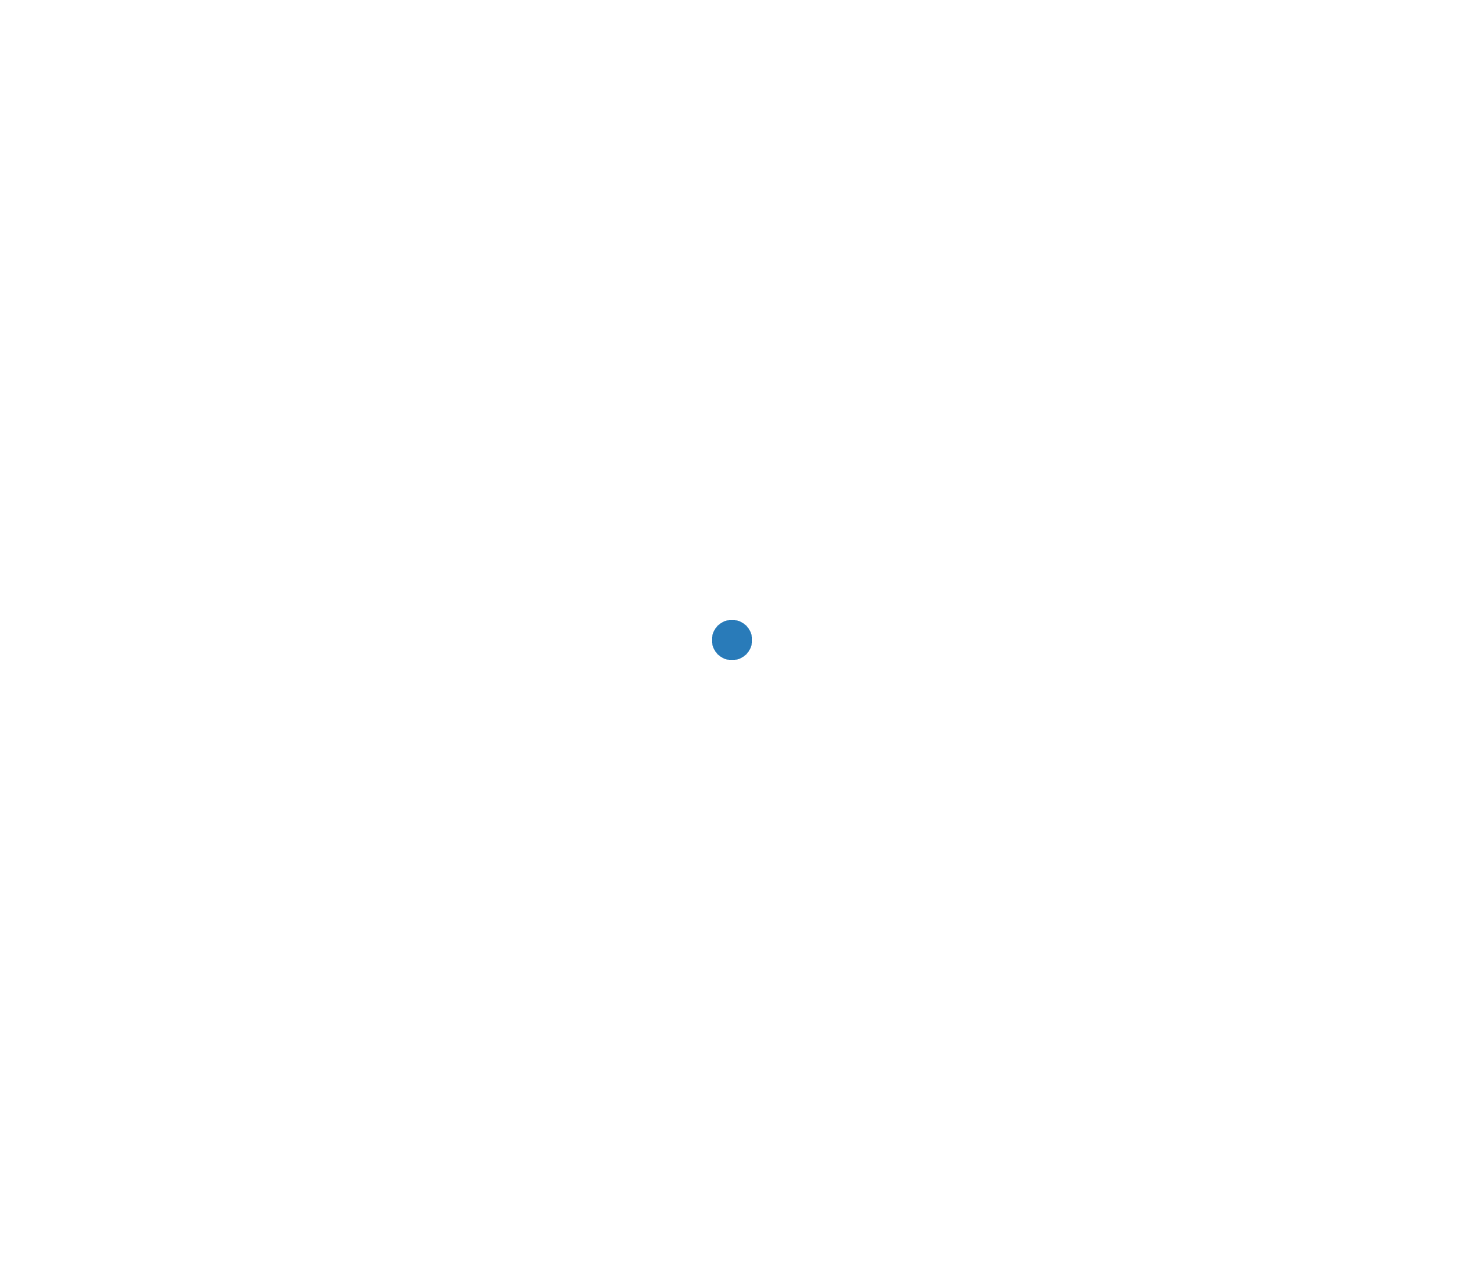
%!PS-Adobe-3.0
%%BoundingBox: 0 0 1463 1280
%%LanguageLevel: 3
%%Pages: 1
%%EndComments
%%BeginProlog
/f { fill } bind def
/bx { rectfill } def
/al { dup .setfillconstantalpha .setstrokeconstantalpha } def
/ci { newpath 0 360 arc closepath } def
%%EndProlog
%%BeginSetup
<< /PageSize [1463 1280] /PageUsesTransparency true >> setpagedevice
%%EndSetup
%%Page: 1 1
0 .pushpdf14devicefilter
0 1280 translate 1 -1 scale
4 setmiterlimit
1 setgray
0 0 1463 1280 bx
0.4 0.631 0.804 setrgbcolor
732 640 20 ci f
0.6 al
0 0.384 0.675 setrgbcolor
732 640 20 ci f
.poppdf14devicefilter showpage
%%EOF
